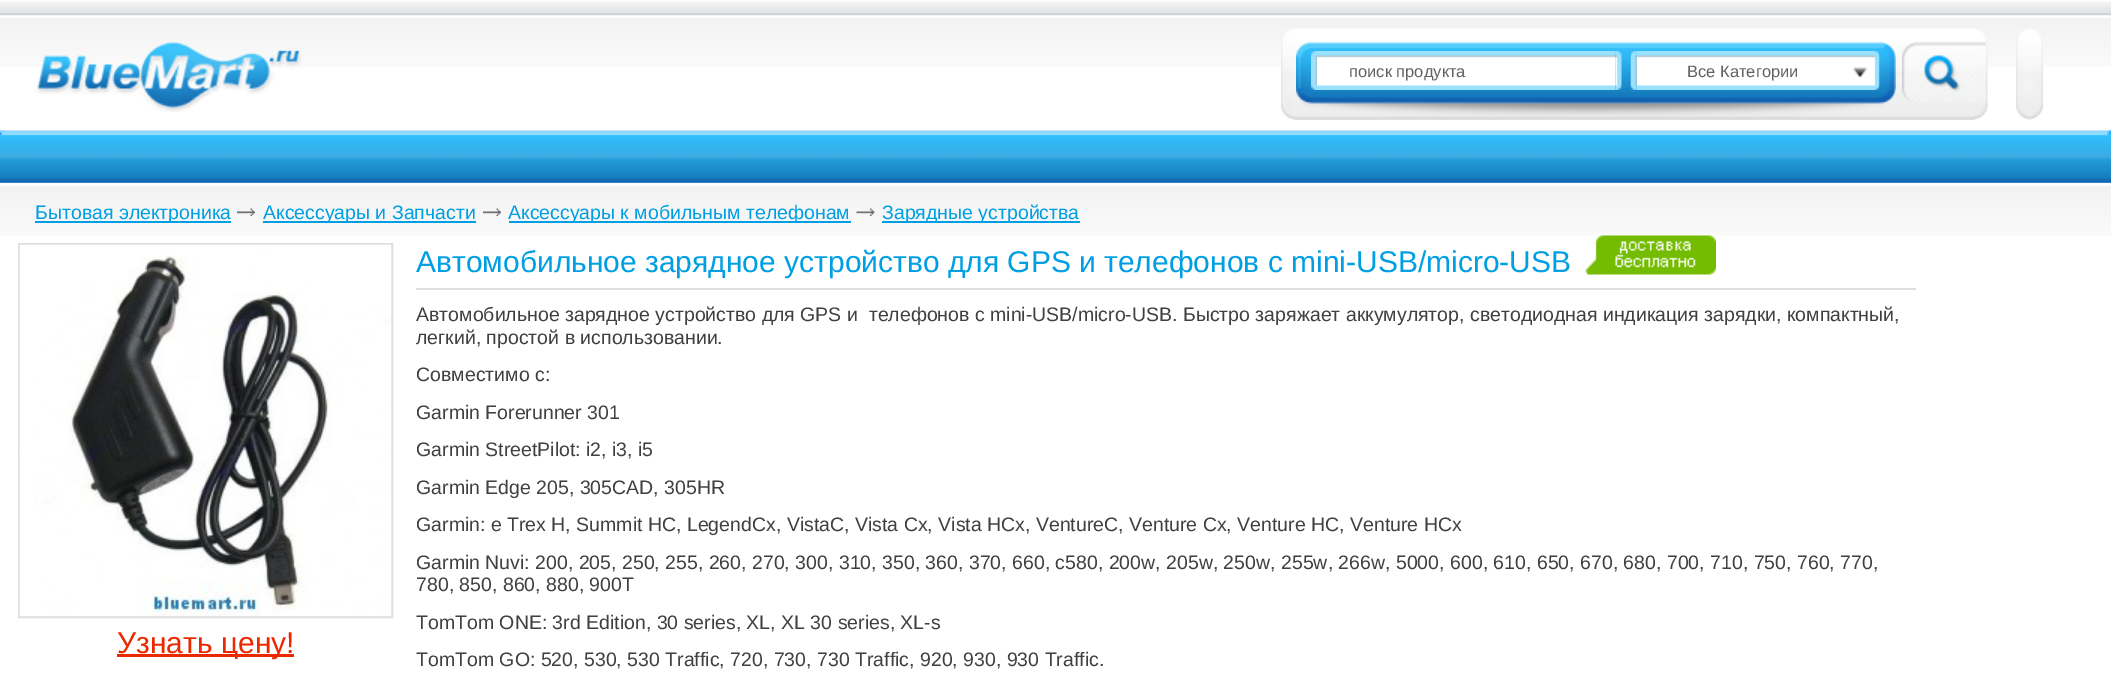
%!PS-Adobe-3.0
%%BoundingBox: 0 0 2111 696
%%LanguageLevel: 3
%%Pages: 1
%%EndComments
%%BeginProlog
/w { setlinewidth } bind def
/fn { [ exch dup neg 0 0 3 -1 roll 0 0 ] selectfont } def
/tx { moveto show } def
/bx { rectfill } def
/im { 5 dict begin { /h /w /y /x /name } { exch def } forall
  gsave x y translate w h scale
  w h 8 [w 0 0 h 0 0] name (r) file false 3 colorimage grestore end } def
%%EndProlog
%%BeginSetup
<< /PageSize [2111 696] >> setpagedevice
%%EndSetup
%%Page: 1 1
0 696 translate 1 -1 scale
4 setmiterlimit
1 setgray
0 0 2111 696 bx
(image0.raw) 0 1 2111 66 im
(image1.raw) 35 42 267 70 im
(image3.raw) 1294 28 680 92 im
(image2.raw) 1281 28 14 92 im
(image4.raw) 1296 42 600 74 im
(image5.raw) 1311 51 6 39 im
(image6.raw) 1317 51 299 39 im
/LiberationSans-Regular 16.5 fn
0.384 setgray
(поиск продукта) 1349 77 tx
(image7.raw) 1615 51 7 39 im
(image9.raw) 1636 51 212 39 im
(image8.raw) 1630 51 7 39 im
(Все Категории) 1687 77 tx
(image10.raw) 1848 51 32 39 im
(image12.raw) 1974 28 14 92 im
(image11.raw) 1902 42 84 60 im
(image13.raw) 2016 28 14 92 im
(image14.raw) 2029 28 14 92 im
(image15.raw) 0 130 2111 53 im
(image16.raw) 0 130 5 5 im
(image17.raw) 2107 130 4 5 im
(image18.raw) 0 186 2111 50 im
0 0.624 0.89 setrgbcolor
35 221 196 2 bx
/LiberationSans-Regular 19.5 fn
(Бытовая электроника) 35 219 tx
(image19.raw) 237 208 18 8 im
263 221 213 2 bx
(Аксессуары и Запчасти) 263 219 tx
(image20.raw) 483 208 18 8 im
509 221 342 2 bx
(Аксессуары к мобильным телефонам) 508 219 tx
(image21.raw) 856 208 19 8 im
882 221 198 2 bx
(Зарядные устройства) 882 219 tx
0.875 0.875 0.878 setrgbcolor
2 w
19 244 373 373 rectstroke
(image22.raw) 19 244 373 373 im
0.918 0.161 0 setrgbcolor
117 654 177 3 bx
/LiberationSans-Regular 30 fn
(Узнать цену!) 117 653 tx
0.875 0.875 0.878 setrgbcolor
416 288 1500 2 bx
0 0.624 0.89 setrgbcolor
(Автомобильное зарядное устройство для GPS и телефонов с mini-USB/micro-USB) 416 272 tx
(image23.raw) 1585 235 131 40 im
/LiberationSans-Regular 19.5 fn
0.251 setgray
(Автомобильное зарядное устройство для GPS и  телефонов с mini-USB/micro-USB. Быстро заряжает аккумулятор, светодиодная индикация зарядки, компактный,) 416 321 tx
(легкий, простой в использовании.) 416 344 tx
(Совместимо с:) 416 381 tx
(Garmin Forerunner 301) 416 419 tx
(Garmin StreetPilot: i2, i3, i5) 416 456 tx
(Garmin Edge 205, 305CAD, 305HR) 416 494 tx
(Garmin: e Trex H, Summit HC, LegendCx, VistaC, Vista Cx, Vista HCx, VentureC, Venture Cx, Venture HC, Venture HCx) 416 531 tx
(Garmin Nuvi: 200, 205, 250, 255, 260, 270, 300, 310, 350, 360, 370, 660, c580, 200w, 205w, 250w, 255w, 266w, 5000, 600, 610, 650, 670, 680, 700, 710, 750, 760, 770,) 416 569 tx
(780, 850, 860, 880, 900T) 416 591 tx
(TomTom ONE: 3rd Edition, 30 series, XL, XL 30 series, XL-s) 416 629 tx
(TomTom GO: 520, 530, 530 Traffic, 720, 730, 730 Traffic, 920, 930, 930 Traffic.) 416 666 tx
showpage
%%EOF
